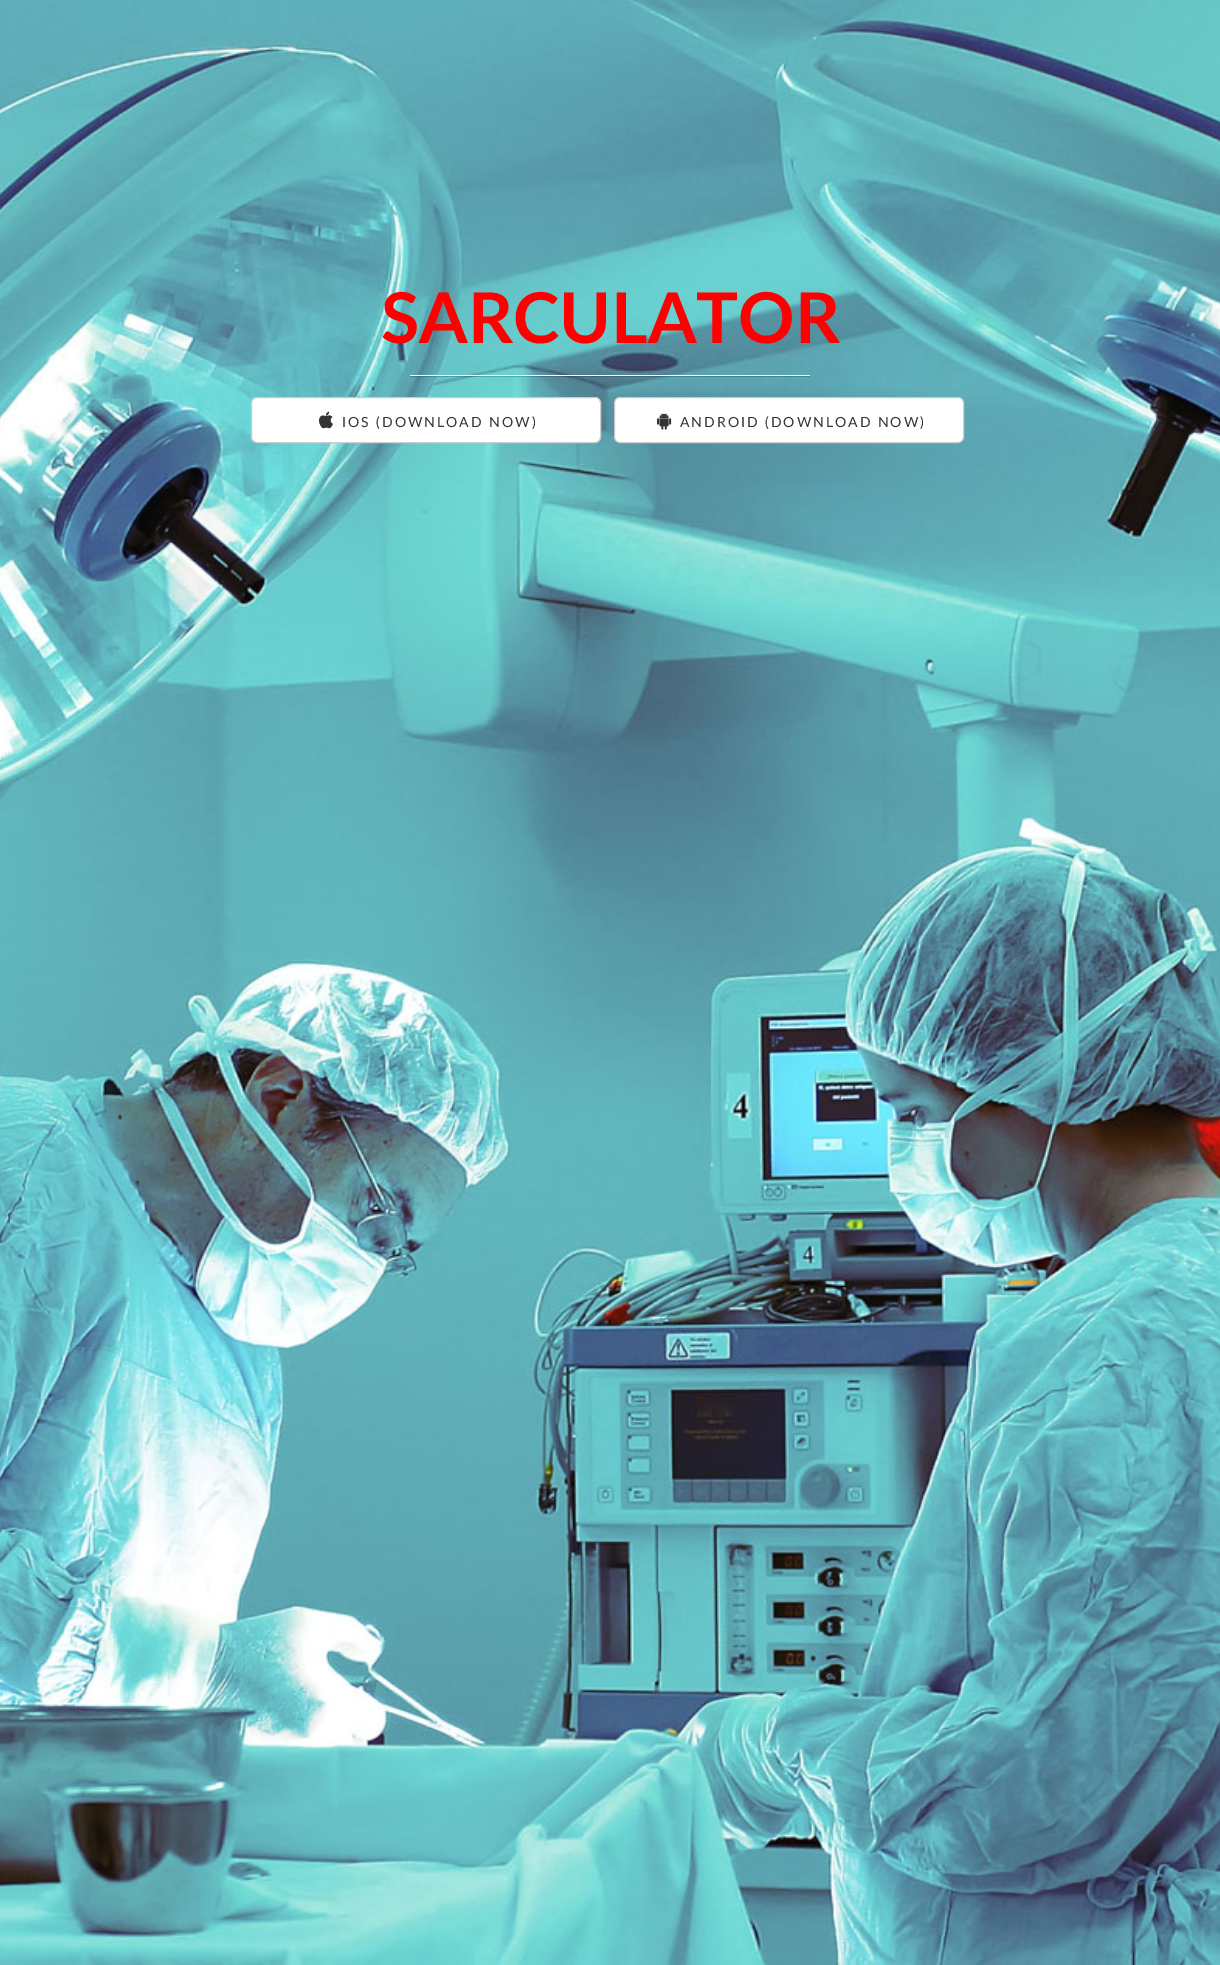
%!PS-Adobe-3.0
%%BoundingBox: 0 0 1220 1965
%%LanguageLevel: 3
%%Pages: 1
%%EndComments
%%BeginProlog
/m { moveto } bind def
/f { fill } bind def
/S { stroke } bind def
/q { gsave } bind def
/Q { grestore } bind def
/fn { [ exch dup neg 0 0 3 -1 roll 0 0 ] selectfont } def
/tx { moveto show } def
/bx { rectfill } def
/al { dup .setfillconstantalpha .setstrokeconstantalpha } def
/rr { 5 dict begin { /r /h /w /y /x } { exch def } forall
  x r add y moveto x w add y 2 copy h add r arct x w add y h add x 1 index r arct
  x y h add x y r arct x y 2 copy exch w add exch r arct closepath end } def
/im { 5 dict begin { /h /w /y /x /name } { exch def } forall
  gsave x y translate w h scale
  w h 8 [w 0 0 h 0 0] name (r) file false 3 colorimage grestore end } def
%%EndProlog
%%BeginSetup
<< /PageSize [1220 1965] /PageUsesTransparency true >> setpagedevice
%%EndSetup
%%Page: 1 1
0 .pushpdf14devicefilter
0 1965 translate 1 -1 scale
4 setmiterlimit
1 setgray
0 0 1220 1965 bx
(image0.raw) 0 0 1220 1965 im
/Lato-Bold 70 fn
1 0 0 setrgbcolor
(SARCULATOR) 381 343 tx
0.973 setgray
410 375 400 1 bx
0.2 al
0 setgray
410 376 400 1 bx
1 al
1 setgray
251.5 397.5 349 45 5.5 rr q f Q
0.8 setgray
S
(image1.raw) 319 411 14 18 im
/Lato-Regular 14 fn
0.2 setgray
342 427 m 2 0 (IOS \(DOWNLOAD NOW\)) ashow
1 setgray
614.5 397.5 349 45 5.5 rr q f Q
0.8 setgray
S
(image2.raw) 657 413 15 17 im
0.2 setgray
680 427 m 2 0 (ANDROID \(DOWNLOAD NOW\)) ashow
.poppdf14devicefilter showpage
%%EOF
